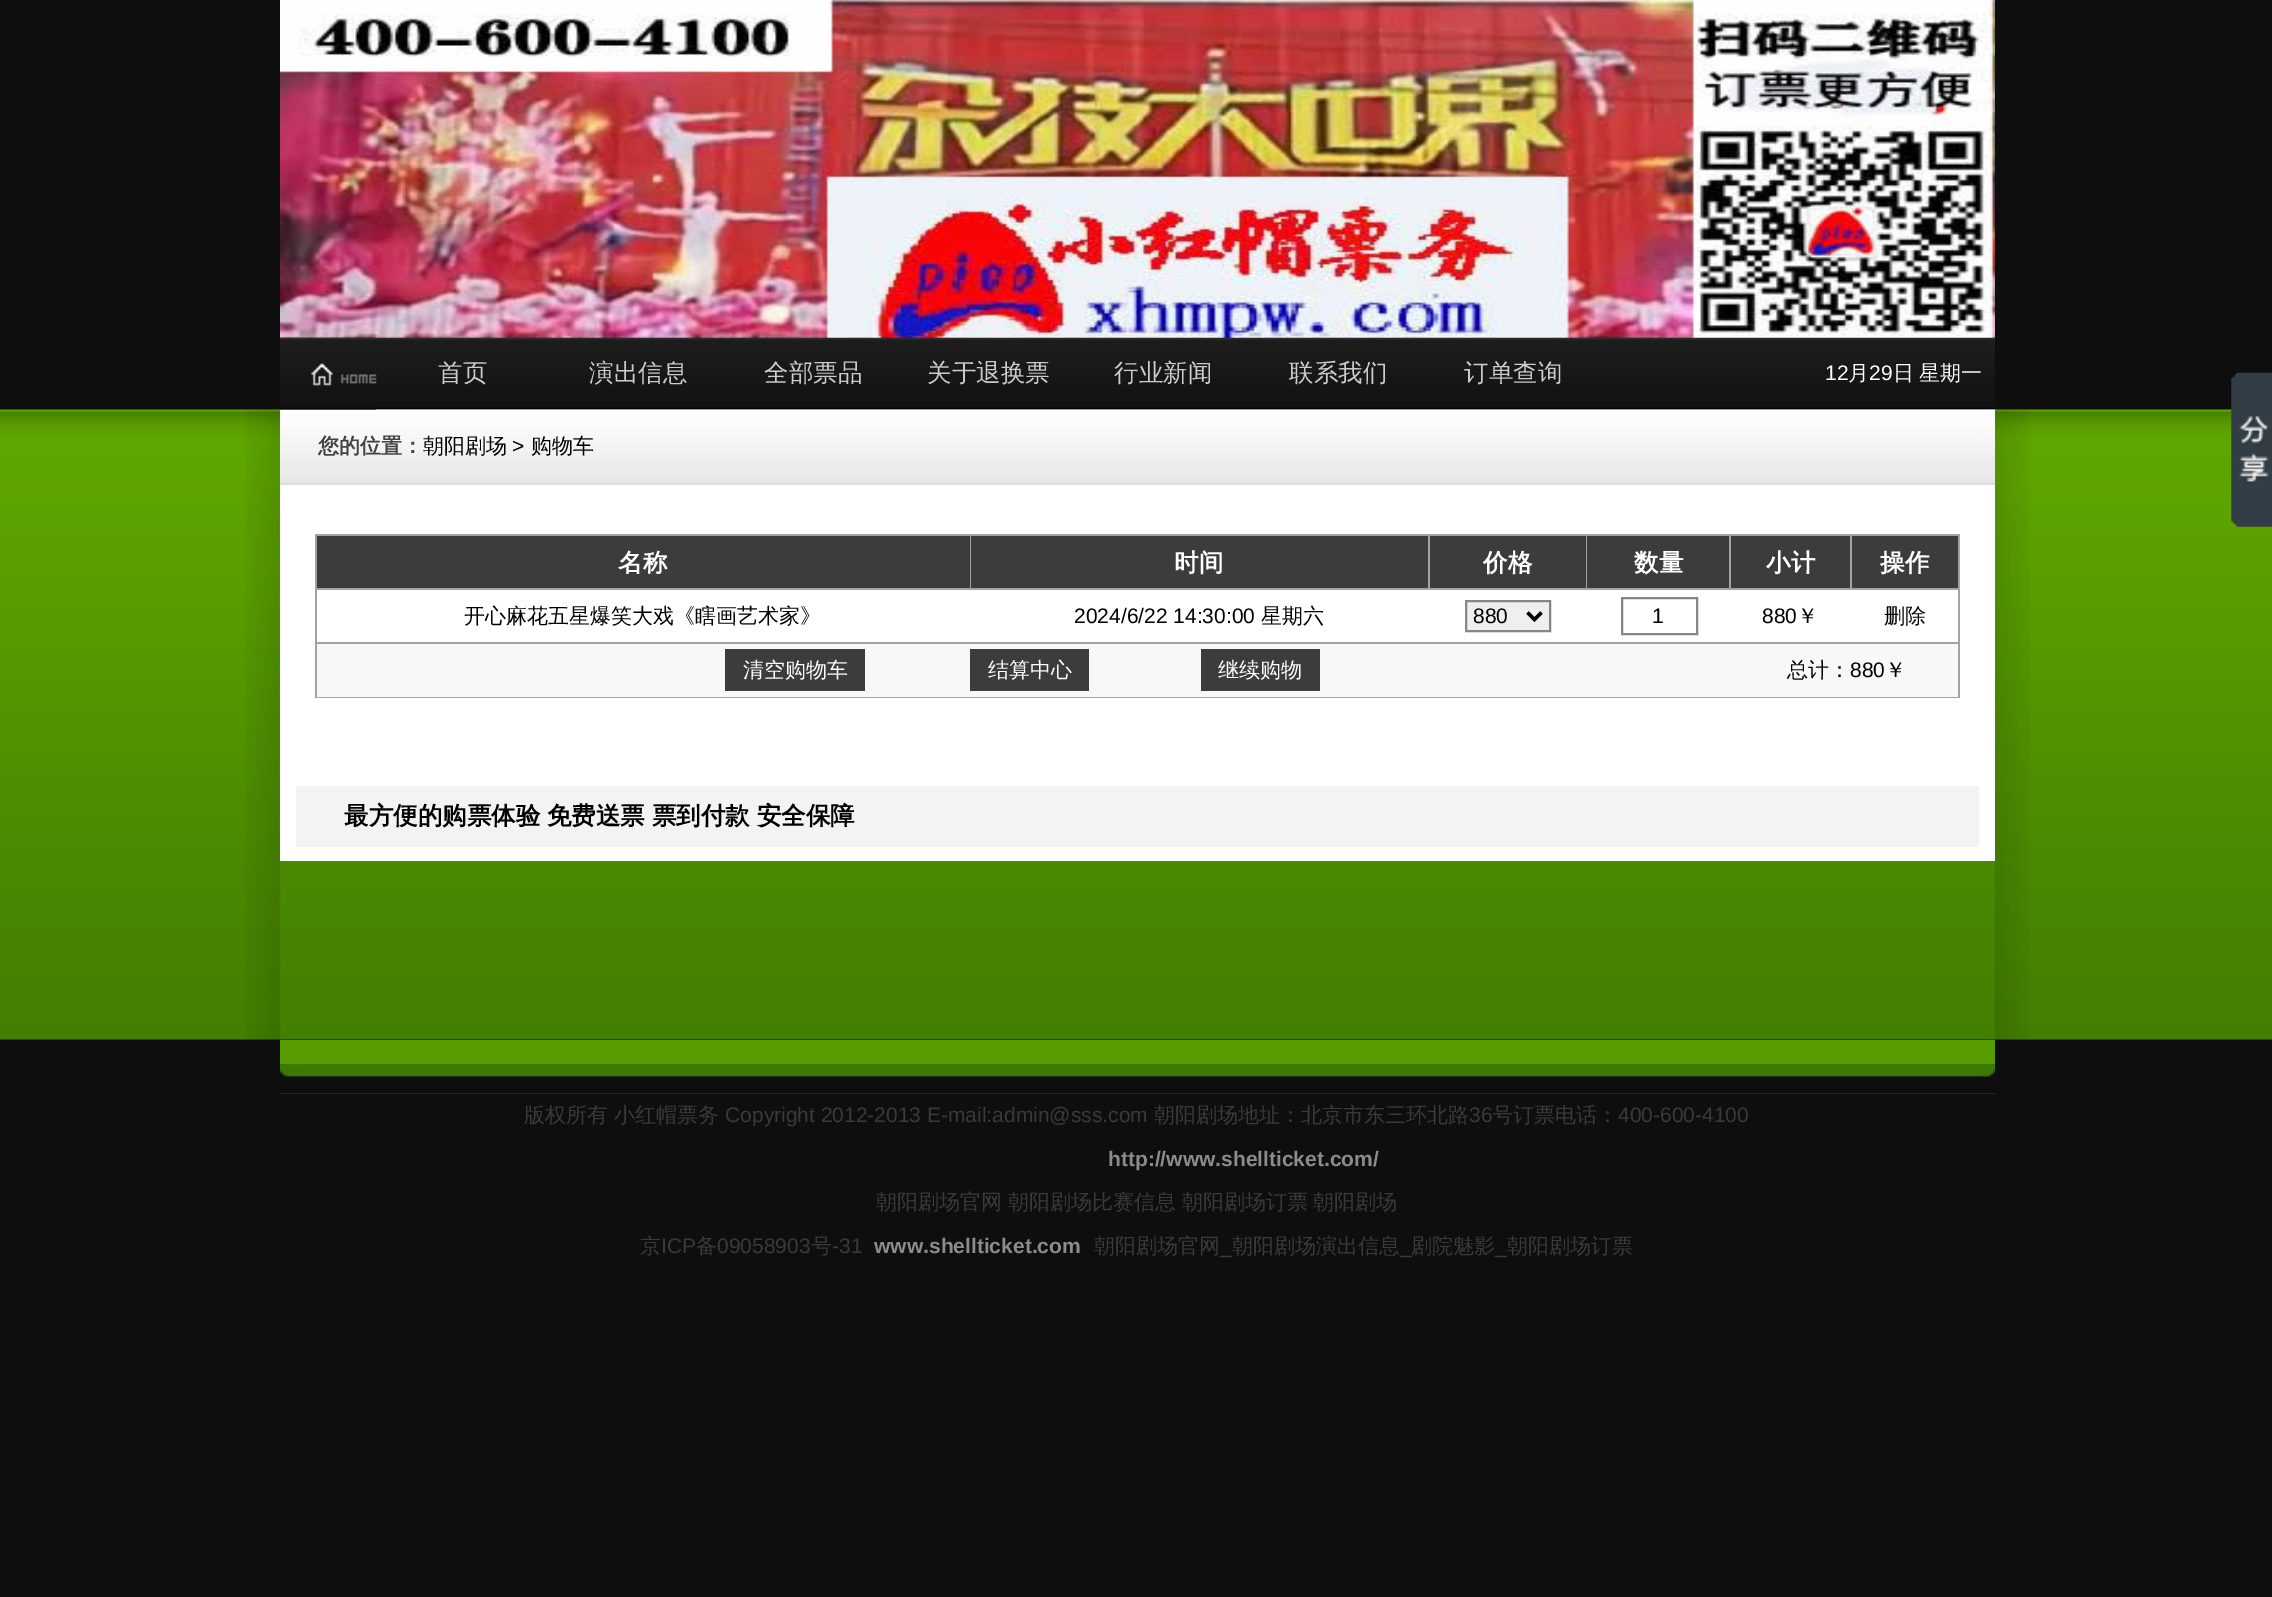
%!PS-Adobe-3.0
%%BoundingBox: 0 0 2272 1597
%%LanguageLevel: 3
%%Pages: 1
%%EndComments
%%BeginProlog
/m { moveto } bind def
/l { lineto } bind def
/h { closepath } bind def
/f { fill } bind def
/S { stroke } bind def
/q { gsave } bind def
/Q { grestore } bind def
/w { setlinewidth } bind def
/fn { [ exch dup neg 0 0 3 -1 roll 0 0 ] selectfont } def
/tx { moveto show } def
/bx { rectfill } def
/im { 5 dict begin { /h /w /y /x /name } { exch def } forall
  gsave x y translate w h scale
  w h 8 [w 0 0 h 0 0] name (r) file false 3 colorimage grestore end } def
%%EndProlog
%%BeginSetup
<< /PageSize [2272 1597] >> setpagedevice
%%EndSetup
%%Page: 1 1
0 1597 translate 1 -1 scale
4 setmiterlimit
0.055 setgray
0 0 2272 1597 bx
(image1.raw) 280 337 1715 73 im
(image0.raw) 280 0 1715 338 im
(image3.raw) 0 409 2272 631 im
(image4.raw) 245 409 1785 631 im
1 setgray
280 410 1715 451 bx
(image5.raw) 280 409 770 76 im
(image2.raw) 280 337 97 73 im
/WenQuanYiZenHei-Medium 24.5 fn
0.8 setgray
(首页) 438 381 tx
(演出信息) 589 381 tx
(全部票品) 764 381 tx
(关于退换票) 927 381 tx
(行业新闻) 1114 381 tx
(联系我们) 1289 381 tx
(订单查询) 1464 381 tx
/LiberationSans-Regular 21 fn
1 setgray
(12) 1825 380 tx
/WenQuanYiZenHei-Medium 21 fn
(月) 1848 380 tx
/LiberationSans-Regular 21 fn
(29) 1869 380 tx
/WenQuanYiZenHei-Medium 21 fn
(日) 1893 380 tx
(星期一) 1919 380 tx
/WenQuanYiZenHei-Bold 21 fn
0.263 setgray
(您的位置：) 318 453 tx
/WenQuanYiZenHei-Medium 21 fn
0 setgray
(朝阳剧场) 423 453 tx
/LiberationSans-Regular 21 fn
(>) 512 453 tx
/WenQuanYiZenHei-Medium 21 fn
(购物车) 531 453 tx
(image6.raw) 1050 409 930 76 im
(image7.raw) 1979 409 16 76 im
0.639 setgray
315 534 1645 164 bx
0.235 setgray
317 536 653 52 bx
/WenQuanYiZenHei-Bold 24.5 fn
1 setgray
(名称) 618 571 tx
0.235 setgray
971 536 457 52 bx
1 setgray
(时间) 1174 571 tx
0.235 setgray
1430 536 156 52 bx
1 setgray
(价格) 1483 571 tx
0.235 setgray
1587 536 142 52 bx
1 setgray
(数量) 1634 571 tx
0.235 setgray
1731 536 119 52 bx
1 setgray
(小计) 1766 571 tx
0.235 setgray
1852 536 106 52 bx
1 setgray
(操作) 1880 571 tx
317 590 1641 52 bx
/WenQuanYiZenHei-Medium 21 fn
0 setgray
(开心麻花五星爆笑大戏《瞎画艺术家》) 464 623 tx
/LiberationSans-Regular 21 fn
(2024/6/22 14:30:00) 1074 623 tx
/WenQuanYiZenHei-Medium 21 fn
(星期六) 1261 623 tx
0.937 setgray
1466 601 m 1550 601 l 1550 631 l 1466 631 l h q f Q
0.525 setgray
2 w
S
0 setgray
3.5 w
1527.5 612.5 m 1534.5 619.5 l 1541.5 612.5 l S
/LiberationSans-Regular 21 fn
(880) 1473 623 tx
0.525 setgray
2 w
1622 598 75 36 rectstroke
0 setgray
(1) 1652 623 tx
(880) 1762 623 tx
/WenQuanYiZenHei-Medium 21 fn
(￥) 1797 623 tx
(删除) 1884 623 tx
0.973 setgray
317 644 1641 53 bx
0.235 setgray
725 649 140 42 bx
1 setgray
(清空购物车) 743 677 tx
0.235 setgray
970 649 119 42 bx
1 setgray
(结算中心) 988 677 tx
0.235 setgray
1201 649 119 42 bx
1 setgray
(继续购物) 1218 677 tx
0 setgray
(总计：) 1787 677 tx
/LiberationSans-Regular 21 fn
(880) 1850 677 tx
/WenQuanYiZenHei-Medium 21 fn
(￥) 1885 677 tx
0.953 setgray
296 786 1683 61 bx
/WenQuanYiZenHei-Bold 24.5 fn
0 setgray
344 824 m -0.5 0 32 (最方便的购票体验 免费送票 票到付款 安全保障) widthshow
0.341 0.616 0 setrgbcolor
280 1040 1715 54 bx
(image8.raw) 280 1064 1715 30 im
/WenQuanYiZenHei-Medium 21 fn
0.227 setgray
(版权所有) 524 1122 tx
(小红帽票务) 614 1122 tx
/LiberationSans-Regular 21 fn
(Copyright 2012-2013 E-mail:admin@sss.com) 725 1122 tx
/WenQuanYiZenHei-Medium 21 fn
(朝阳剧场地址：北京市东三环北路) 1154 1122 tx
/LiberationSans-Regular 21 fn
(36) 1469 1122 tx
/WenQuanYiZenHei-Medium 21 fn
(号订票电话：) 1492 1122 tx
/LiberationSans-Regular 21 fn
(400-600-4100) 1618 1122 tx
/LiberationSans-Bold 21 fn
0.549 setgray
(http://www.shellticket.com/) 1108 1166 tx
/WenQuanYiZenHei-Medium 21 fn
0.227 setgray
876 1209 m -0.5 0 32 (朝阳剧场官网 朝阳剧场比赛信息 朝阳剧场订票 朝阳剧场) widthshow
(京) 640 1253 tx
/LiberationSans-Regular 21 fn
(ICP) 661 1253 tx
/WenQuanYiZenHei-Medium 21 fn
(备) 696 1253 tx
/LiberationSans-Regular 21 fn
(09058903) 717 1253 tx
/WenQuanYiZenHei-Medium 21 fn
(号) 811 1253 tx
/LiberationSans-Regular 21 fn
(-31) 832 1253 tx
/LiberationSans-Bold 21 fn
0.549 setgray
(www.shellticket.com) 874 1253 tx
/WenQuanYiZenHei-Medium 21 fn
0.227 setgray
(朝阳剧场官网) 1094 1253 tx
/LiberationSans-Regular 21 fn
(_) 1220 1253 tx
/WenQuanYiZenHei-Medium 21 fn
(朝阳剧场演出信息) 1232 1253 tx
(剧院魅影) 1411 1253 tx
(朝阳剧场订票) 1507 1253 tx
/LiberationSans-Regular 21 fn
(_) 1400 1253 tx
(_) 1495 1253 tx
(image9.raw) 2231 372 41 155 im
showpage
%%EOF
